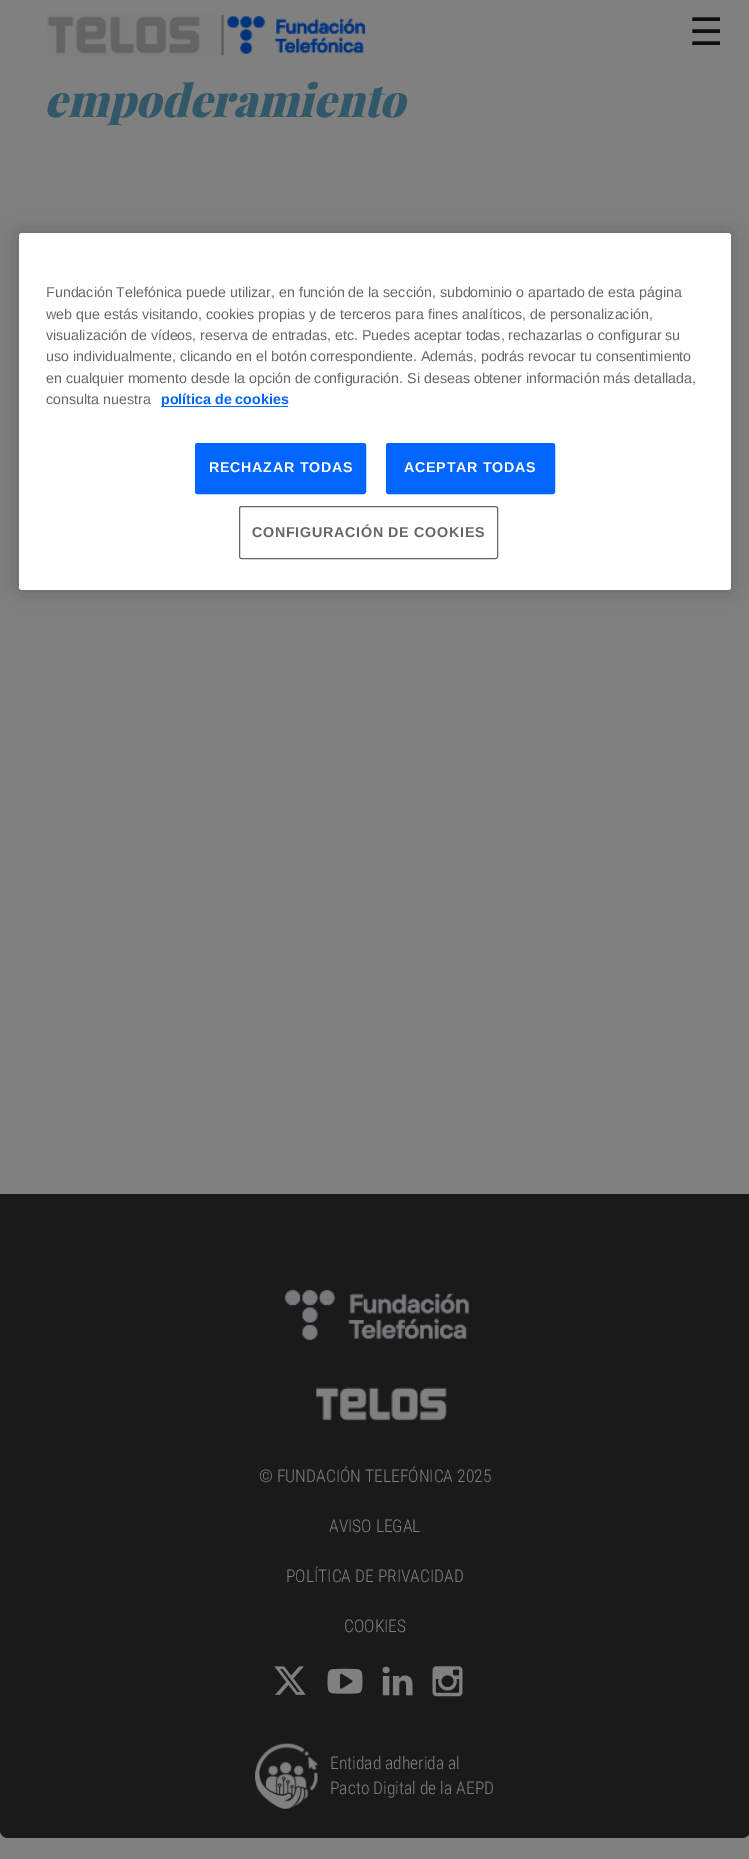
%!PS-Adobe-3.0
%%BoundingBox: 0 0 749 1859
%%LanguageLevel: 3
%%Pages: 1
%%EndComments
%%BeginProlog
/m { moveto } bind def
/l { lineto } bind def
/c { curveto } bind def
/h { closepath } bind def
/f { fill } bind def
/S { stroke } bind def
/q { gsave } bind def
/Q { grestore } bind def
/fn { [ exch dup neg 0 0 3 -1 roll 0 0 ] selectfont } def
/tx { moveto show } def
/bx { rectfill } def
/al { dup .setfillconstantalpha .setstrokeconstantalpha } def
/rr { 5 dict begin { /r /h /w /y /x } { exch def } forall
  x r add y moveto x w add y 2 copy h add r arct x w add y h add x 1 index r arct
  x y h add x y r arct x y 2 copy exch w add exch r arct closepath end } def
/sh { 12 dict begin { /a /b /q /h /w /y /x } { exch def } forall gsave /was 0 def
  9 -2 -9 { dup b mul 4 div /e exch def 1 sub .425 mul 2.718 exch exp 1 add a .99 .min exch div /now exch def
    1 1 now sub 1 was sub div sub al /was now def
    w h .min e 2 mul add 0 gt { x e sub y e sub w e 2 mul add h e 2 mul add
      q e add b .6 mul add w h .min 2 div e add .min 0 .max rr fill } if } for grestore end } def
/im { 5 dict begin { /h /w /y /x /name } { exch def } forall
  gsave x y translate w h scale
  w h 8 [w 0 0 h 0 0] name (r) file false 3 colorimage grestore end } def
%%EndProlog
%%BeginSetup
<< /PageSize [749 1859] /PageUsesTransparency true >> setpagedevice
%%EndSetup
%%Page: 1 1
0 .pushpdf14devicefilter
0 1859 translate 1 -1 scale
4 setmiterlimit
0.502 setgray
0 0 749 1859 bx
(image0.raw) 47 14 177 42 im
(image1.raw) 227 16 139 38 im
/DejaVuSans-Regular 38 fn
0.059 0.059 0.055 setrgbcolor
(☰) 689 45 tx
/PlayfairDisplay-BlackItalic 45 fn
0.196 0.341 0.4 setrgbcolor
(empoderamiento) 44 117 tx
0 setgray
19 233 712 357 3 11 0.2 sh
1 setgray
19 233 712 357 3 rr f
/LiberationSans-Regular 14.25 fn
0.4 setgray
(Fundación Telefónica puede utilizar, en función de la sección, subdominio o apartado de esta página) 46 297 tx
(web que estás visitando, cookies propias y de terceros para fines analíticos, de personalización,) 46 319 tx
(visualización de vídeos, reserva de entradas, etc. Puedes aceptar todas, rechazarlas o configurar su) 46 340 tx
(uso individualmente, clicando en el botón correspondiente. Además, podrás revocar tu consentimiento) 46 361 tx
(en cualquier momento desde la opción de configuración. Si deseas obtener información más detallada,) 46 383 tx
(consulta nuestra) 46 404 tx
0 0.4 1 setrgbcolor
161 406 127 1 bx
/LiberationSans-Bold 14.25 fn
(política de cookies) 161 404 tx
195.5 443.5 170 50 2 rr q f Q
S
1 setgray
209 472 m 0.75 0 (RECHAZAR TODAS) ashow
0 0.4 1 setrgbcolor
386.5 443.5 168 50 2 rr q f Q
S
1 setgray
404 472 m 0.75 0 (ACEPTAR TODAS) ashow
0.4 setgray
239.5 506.5 258 52 2 rr S
252 537 m 0.75 0 (CONFIGURACIÓN DE COOKIES) ashow
0.102 setgray
0 1194 m 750 1194 l 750 1830 l 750 1834.5 746.5 1838 742 1838 c 8 1838 l 3.5 1838 0 1834.5 0 1830 c h f
(image2.raw) 284 1289 185 52 im
(image3.raw) 316 1387 131 34 im
/RobotoCondensed-Light 17.5 fn
0.502 setgray
(© FUNDACIÓN TELEFÓNICA 2025) 259 1482 tx
(AVISO LEGAL) 329 1532 tx
(POLÍTICA DE PRIVACIDAD) 286 1582 tx
(COOKIES) 344 1632 tx
(image4.raw) 274 1666 32 29 im
(image5.raw) 327 1668 36 26 im
(image6.raw) 382 1666 31 30 im
(image7.raw) 432 1666 31 31 im
(image8.raw) 255 1743 63 66 im
(Entidad adherida al) 330 1769 tx
(Pacto Digital de la AEPD) 330 1794 tx
.poppdf14devicefilter showpage
%%EOF
